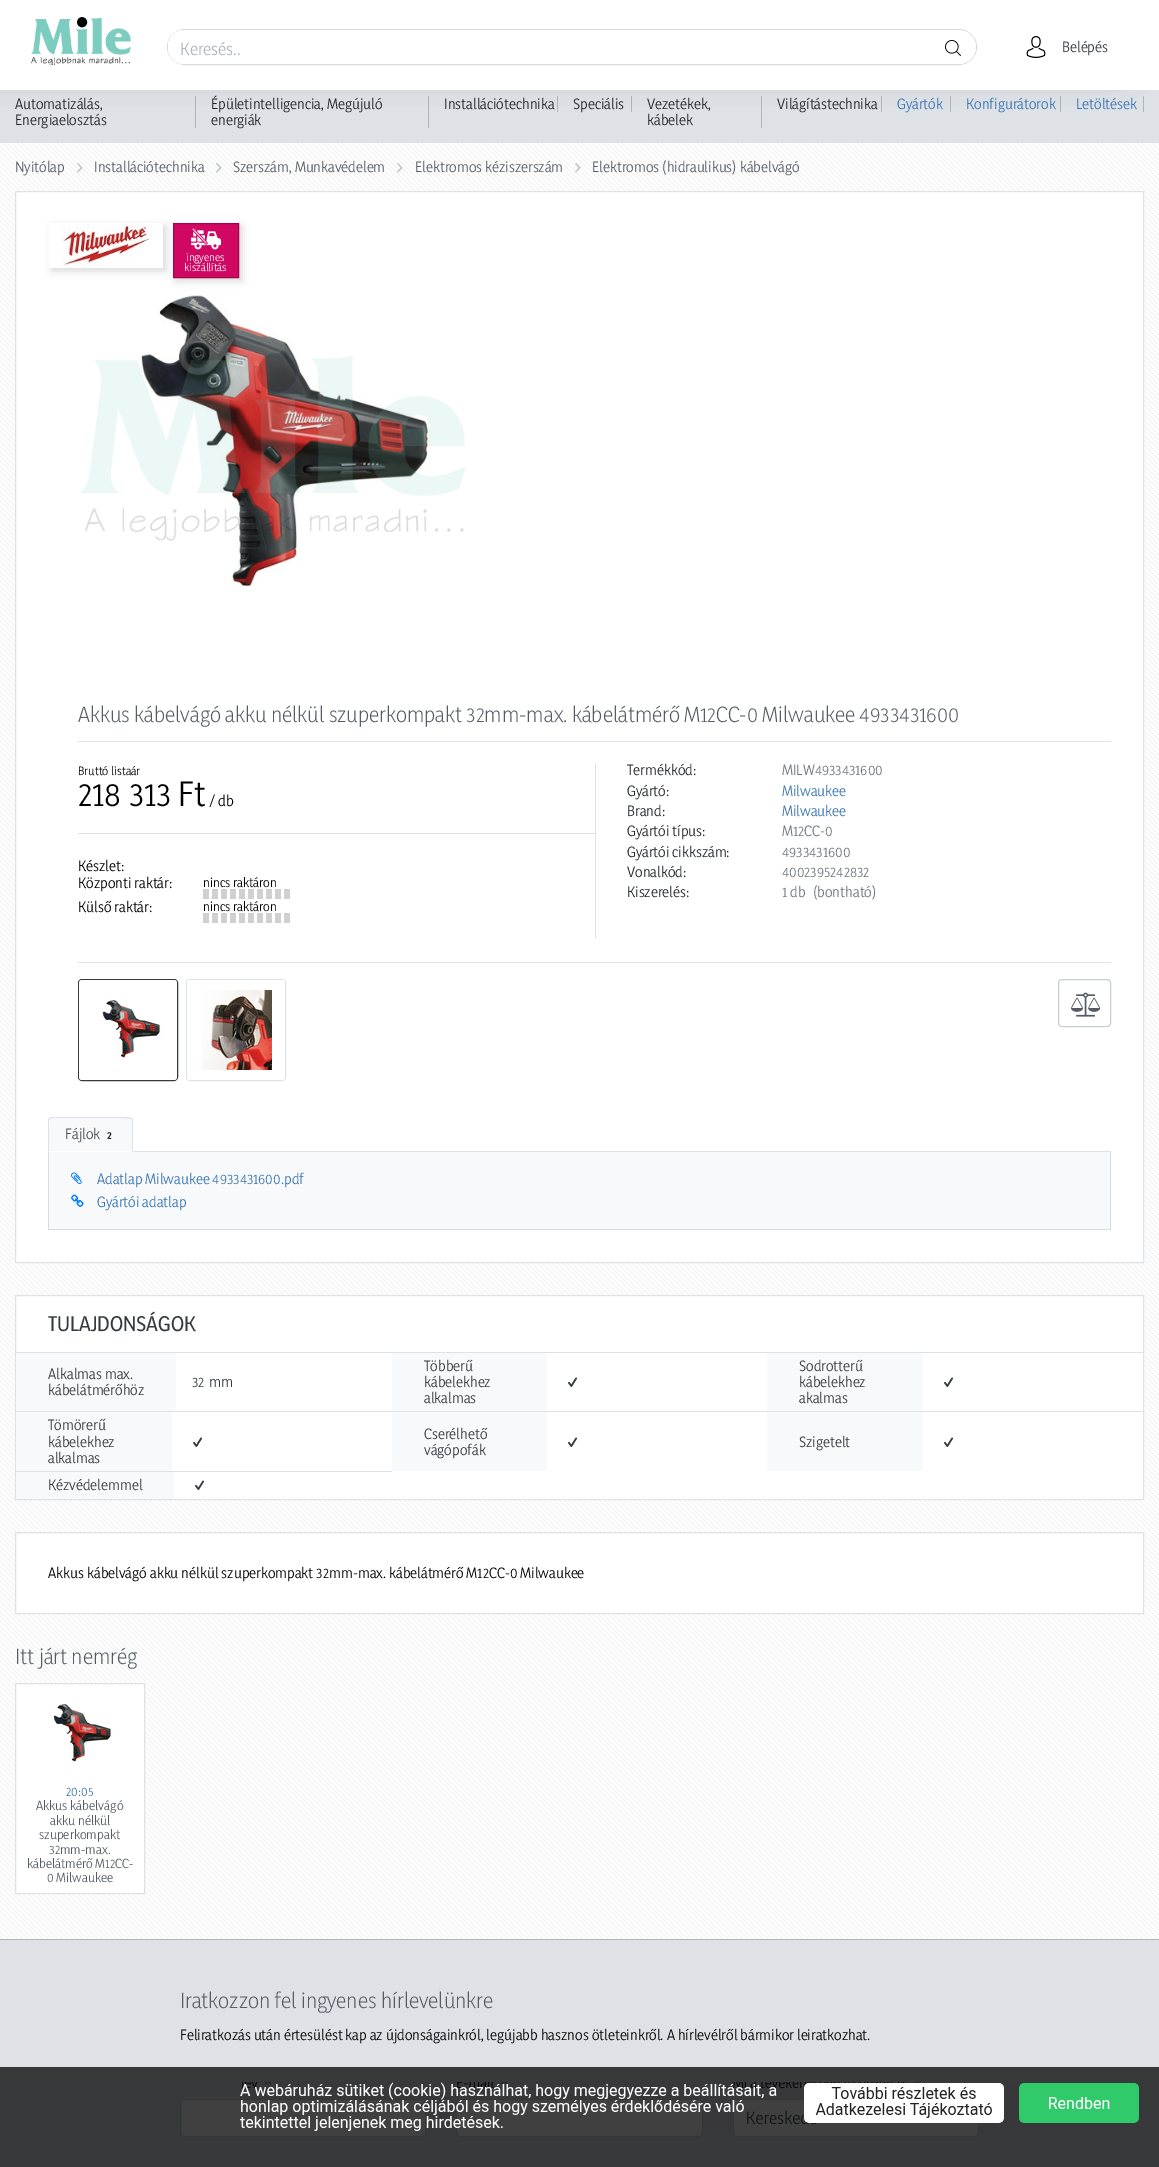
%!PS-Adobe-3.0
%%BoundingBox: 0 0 1159 2167
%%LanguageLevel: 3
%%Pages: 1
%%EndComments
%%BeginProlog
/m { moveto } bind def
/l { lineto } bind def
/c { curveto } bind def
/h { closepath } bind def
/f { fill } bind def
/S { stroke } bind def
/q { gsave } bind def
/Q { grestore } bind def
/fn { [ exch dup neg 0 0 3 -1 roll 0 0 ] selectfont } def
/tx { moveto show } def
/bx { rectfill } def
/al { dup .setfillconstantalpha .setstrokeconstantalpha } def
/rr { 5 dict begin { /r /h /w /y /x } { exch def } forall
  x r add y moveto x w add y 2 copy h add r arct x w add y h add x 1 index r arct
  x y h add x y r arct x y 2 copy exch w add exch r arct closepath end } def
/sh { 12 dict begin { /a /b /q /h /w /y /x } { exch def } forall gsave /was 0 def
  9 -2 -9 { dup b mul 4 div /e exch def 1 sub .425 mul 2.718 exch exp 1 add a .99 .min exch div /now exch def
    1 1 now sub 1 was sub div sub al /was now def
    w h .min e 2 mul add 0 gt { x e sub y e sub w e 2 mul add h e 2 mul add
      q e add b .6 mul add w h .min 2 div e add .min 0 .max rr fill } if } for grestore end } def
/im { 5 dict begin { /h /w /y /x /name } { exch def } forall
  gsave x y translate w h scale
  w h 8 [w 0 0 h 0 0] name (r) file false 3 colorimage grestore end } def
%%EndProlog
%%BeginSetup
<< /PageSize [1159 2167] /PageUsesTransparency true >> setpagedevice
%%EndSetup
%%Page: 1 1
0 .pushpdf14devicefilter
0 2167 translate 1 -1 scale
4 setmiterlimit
1 setgray
0 0 1159 2167 bx
(image0.raw) 0 143 1159 1796 im
0.871 0.886 0.902 setrgbcolor
0 90 1159 53 bx
0.678 0.71 0.741 setrgbcolor
195 96 1 32 bx
428 96 1 32 bx
557 96 1 16 bx
631 96 1 16 bx
761 96 1 32 bx
881 96 1 16 bx
950 96 1 16 bx
1060 96 1 16 bx
1143 96 1 16 bx
0 setgray
-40 -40 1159 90 0 25 0.5 sh
1 setgray
0 0 1159 90 bx
(image1.raw) 31 17 100 49 im
0.851 setgray
167.5 29.5 809 35 17.5 rr S
1 setgray
936 30 m 959 30 l 968.5 30 976 37.5 976 47 c 976 56.5 968.5 64 959 64 c 936 64 l h f
q
168 30 808 34 17 rr clip newpath
172 30 m 937 30 l 937 66 l 172 66 l 170 66 168 64 168 62 c 168 34 l 168 32 170 30 172 30 c h f
Q
/Yaldevi-Regular 16 fn
0.678 0.71 0.741 setrgbcolor
(Keresés..) 180 55 tx
(image2.raw) 945 40 16 16 im
(image3.raw) 1026 36 20 22 im
/Yaldevi-Regular 13.6 fn
0.204 0.227 0.251 setrgbcolor
(Belépés) 1062 52 tx
0.129 0.145 0.161 setrgbcolor
(Automatizálás,) 15 109 tx
(Energiaelosztás) 15 125 tx
(Épületintelligencia, Megújuló) 211 109 tx
(energiák) 211 125 tx
(Installációtechnika) 444 109 tx
(Speciális) 573 109 tx
(Vezetékek,) 647 109 tx
(kábelek) 647 125 tx
(Világítástechnika) 777 109 tx
0.224 0.459 0.71 setrgbcolor
(Gyártók) 897 109 tx
(Konfigurátorok) 966 109 tx
(Letöltések) 1076 109 tx
0.333 0.361 0.396 setrgbcolor
(Nyitólap) 15 172 tx
(image4.raw) 77 163 6 10 im
(Installációtechnika) 94 172 tx
(image5.raw) 216 163 6 10 im
(Szerszám, Munkavédelem) 233 172 tx
(image4.raw) 397 163 6 10 im
(Elektromos kéziszerszám) 415 172 tx
(image6.raw) 575 163 6 10 im
(Elektromos \(hidraulikus\) kábelvágó) 592 172 tx
1 setgray
15.5 191.5 m 1143.5 191.5 l 1143.5 1262.5 l 15.5 1262.5 l h q f Q
0.871 0.886 0.902 setrgbcolor
S
q
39 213 m 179 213 l 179 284 l 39 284 l h 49 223 m 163 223 l 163 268 l 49 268 l h eoclip newpath
0 setgray
52 226 114 45 0 4 0.15 sh
Q
(image7.raw) 61 223 93 45 im
0 setgray
176 226 66 55 0 4 0.15 sh
0.82 0.027 0.392 setrgbcolor
174 224 64 53 bx
(image8.raw) 191 228 30 22 im
0.627 0.02 0.298 setrgbcolor
173.5 223.5 65 54 rectstroke
/Yaldevi-Regular 10 fn
1 setgray
(ingyenes) 186 261 tx
(kiszállítás) 184 271 tx
(image9.raw) 80 295 386 297 im
0.871 0.886 0.902 setrgbcolor
78 741 1033 1 bx
/Yaldevi-Light 20 fn
0.333 0.361 0.396 setrgbcolor
(Akkus kábelvágó akku nélkül szuperkompakt 32mm-max. kábelátmérő M12CC-0 Milwaukee 4933431600) 78 722 tx
/Yaldevi-Regular 11 fn
0 setgray
(Bruttó listaár) 78 775 tx
/Yaldevi-Regular 32 fn
(218 313 Ft) 78 806 tx
/Yaldevi-Regular 14 fn
(/ db) 209 806 tx
0.871 0.886 0.902 setrgbcolor
78 833 517 1 bx
/Yaldevi-Regular 13.6 fn
0 setgray
(Készlet:) 78 871 tx
(Központi raktár:) 78 888 tx
/Yaldevi-Regular 12 fn
(nincs raktáron) 203 887 tx
0.816 setgray
203 889 6 10 bx
212 889 6 10 bx
221 889 6 10 bx
230 889 6 10 bx
239 889 6 10 bx
248 889 6 10 bx
257 889 6 10 bx
266 889 6 10 bx
275 889 6 10 bx
284 889 6 10 bx
/Yaldevi-Regular 13.6 fn
0 setgray
(Külső raktár:) 78 912 tx
/Yaldevi-Regular 12 fn
(nincs raktáron) 203 911 tx
0.816 setgray
203 913 6 10 bx
212 913 6 10 bx
221 913 6 10 bx
230 913 6 10 bx
239 913 6 10 bx
248 913 6 10 bx
257 913 6 10 bx
266 913 6 10 bx
275 913 6 10 bx
284 913 6 10 bx
0.871 0.886 0.902 setrgbcolor
595 763 1 175 bx
/Yaldevi-Regular 13.6 fn
0.129 0.145 0.161 setrgbcolor
(Termékkód:) 627 775 tx
0.424 0.459 0.49 setrgbcolor
(MILW4933431600) 782 775 tx
0.129 0.145 0.161 setrgbcolor
(Gyártó:) 627 796 tx
0.224 0.459 0.71 setrgbcolor
(Milwaukee) 782 796 tx
0.129 0.145 0.161 setrgbcolor
(Brand:) 627 816 tx
0.224 0.459 0.71 setrgbcolor
(Milwaukee) 782 816 tx
0.129 0.145 0.161 setrgbcolor
(Gyártói típus:) 627 836 tx
0.424 0.459 0.49 setrgbcolor
(M12CC-0) 782 836 tx
0.129 0.145 0.161 setrgbcolor
(Gyártói cikkszám:) 627 857 tx
0.424 0.459 0.49 setrgbcolor
(4933431600) 782 857 tx
0.129 0.145 0.161 setrgbcolor
(Vonalkód:) 627 877 tx
0.424 0.459 0.49 setrgbcolor
(4002395242832) 782 877 tx
0.129 0.145 0.161 setrgbcolor
(Kiszerelés:) 627 897 tx
0.424 0.459 0.49 setrgbcolor
(1 db) 782 897 tx
(\(bontható\)) 813 897 tx
0.871 0.886 0.902 setrgbcolor
78 962 1033 1 bx
0.204 0.227 0.251 setrgbcolor
78.5 979.5 99 101 3.5 rr S
(image10.raw) 79 980 98 100 im
0.871 0.886 0.902 setrgbcolor
186.5 979.5 99 101 3.5 rr S
(image11.raw) 187 980 98 100 im
0.784 0.812 0.812 setrgbcolor
1058.5 979.5 52 47 3.5 rr S
(image12.raw) 1071 992 30 25 im
0.871 0.886 0.902 setrgbcolor
133 1151 978 1 bx
0.973 0.976 0.98 setrgbcolor
52 1117 m 129 1117 l 131 1117 133 1119 133 1121 c 133 1152 l 48 1152 l 48 1121 l 48 1119 50 1117 52 1117 c h f
0.871 0.886 0.902 setrgbcolor
52 1117 m 49 1118 l 50 1119 l 52 1118 l 65 1118 l 72 1118 129 1117 131 1119 c 132 1118 l 129 1117 l h f
133 1152 m 133 1121 l 133 1120 132.5 1119 132 1118 c 131 1119 l 132 1119 132 1120 132 1121 c 132 1151 l h f
1 setgray
133 1152 m 132 1151 l 49 1151 l 48 1152 l h f
0.871 0.886 0.902 setrgbcolor
48 1152 m 49 1151 l 49 1121 l 49 1120 49 1119 50 1119 c 49 1118 l 48.5 1119 48 1120 48 1121 c h f
0.286 0.314 0.341 setrgbcolor
(Fájlok) 65 1139 tx
/Yaldevi-Bold 10 fn
0.129 0.145 0.161 setrgbcolor
(2) 107 1139 tx
0.839 0.859 0.859 setrgbcolor
1110 1152 1 78 bx
48 1229 1063 1 bx
48 1152 1 78 bx
0.973 0.976 0.98 setrgbcolor
49 1152 1061 77 bx
(image13.raw) 71 1172 11 12 im
/Yaldevi-Regular 13.6 fn
0.224 0.459 0.71 setrgbcolor
(Adatlap Milwaukee 4933431600.pdf) 97 1184 tx
(image14.raw) 71 1194 13 13 im
(Gyártói adatlap) 97 1207 tx
1 setgray
15.5 1295.5 m 1143.5 1295.5 l 1143.5 1499.5 l 15.5 1499.5 l h q f Q
0.871 0.886 0.902 setrgbcolor
S
/Yaldevi-Medium 19.25 fn
0.204 0.227 0.251 setrgbcolor
(TULAJDONSÁGOK) 48 1331 tx
0.871 0.886 0.902 setrgbcolor
16 1352 1127 1 bx
0.973 0.976 0.98 setrgbcolor
16 1353 160 58 bx
/Yaldevi-Regular 13.6 fn
0.204 0.227 0.251 setrgbcolor
(Alkalmas max.) 48 1379 tx
(kábelátmérőhöz) 48 1395 tx
(32) 192 1387 tx
/Yaldevi-Regular 14 fn
(mm) 209 1387 tx
0.973 0.976 0.98 setrgbcolor
392 1353 155 58 bx
/Yaldevi-Regular 13.6 fn
0.204 0.227 0.251 setrgbcolor
(Többerű) 424 1371 tx
(kábelekhez) 424 1387 tx
(alkalmas) 424 1403 tx
(image15.raw) 568 1377 9 10 im
0.973 0.976 0.98 setrgbcolor
767 1353 156 58 bx
0.204 0.227 0.251 setrgbcolor
(Sodrotterű) 799 1371 tx
(kábelekhez) 799 1387 tx
(akalmas) 799 1403 tx
(image15.raw) 944 1377 9 10 im
0.871 0.886 0.902 setrgbcolor
16 1411 1127 1 bx
0.973 0.976 0.98 setrgbcolor
16 1412 156 59 bx
0.204 0.227 0.251 setrgbcolor
(Tömörerű) 48 1430 tx
(kábelekhez) 48 1447 tx
(alkalmas) 48 1463 tx
(image15.raw) 193 1437 9 10 im
0.973 0.976 0.98 setrgbcolor
392 1412 155 59 bx
0.204 0.227 0.251 setrgbcolor
(Cserélhető) 424 1439 tx
(vágópofák) 424 1455 tx
(image15.raw) 568 1437 9 10 im
0.973 0.976 0.98 setrgbcolor
767 1412 156 59 bx
0.204 0.227 0.251 setrgbcolor
(Szigetelt) 799 1447 tx
(image15.raw) 944 1437 9 10 im
0.871 0.886 0.902 setrgbcolor
16 1471 376 1 bx
0.973 0.976 0.98 setrgbcolor
16 1472 158 27 bx
0.204 0.227 0.251 setrgbcolor
(Kézvédelemmel) 48 1490 tx
(image15.raw) 195 1480 9 10 im
1 setgray
15.5 1532.5 m 1143.5 1532.5 l 1143.5 1613.5 l 15.5 1613.5 l h q f Q
0.871 0.886 0.902 setrgbcolor
S
0 setgray
(Akkus kábelvágó akku nélkül szuperkompakt 32mm-max. kábelátmérő M12CC-0 Milwaukee) 48 1578 tx
/Yaldevi-Light 20 fn
0.333 0.361 0.396 setrgbcolor
(Itt járt nemrég) 15 1664 tx
1 setgray
15.5 1683.5 m 144.5 1683.5 l 144.5 1893.5 l 15.5 1893.5 l h q f Q
0.871 0.886 0.902 setrgbcolor
S
(image16.raw) 51 1704 62 58 im
/Yaldevi-Regular 12 fn
0.224 0.459 0.71 setrgbcolor
(20:05) 66 1796 tx
0.333 0.361 0.396 setrgbcolor
(Akkus kábelvágó) 36 1810 tx
(akku nélkül) 50 1825 tx
(szuperkompakt) 39 1839 tx
(32mm-max.) 49 1854 tx
(kábelátmérő M12CC-) 27 1868 tx
(0 Milwaukee) 47 1882 tx
0.871 0.886 0.902 setrgbcolor
0 1940 1159 227 bx
0.678 0.71 0.741 setrgbcolor
0 1939 1159 1 bx
/Yaldevi-Light 20 fn
0.333 0.361 0.396 setrgbcolor
(Iratkozzon fel ingyenes hírlevelünkre) 180 2008 tx
/Yaldevi-Regular 13.6 fn
0 setgray
(Feliratkozás után értesülést kap az újdonságainkról, legújabb hasznos ötleteinkről. A hírlevélről bármikor leiratkozhat.) 180 2040 tx
1 setgray
180.5 2099.5 245 37 3.5 rr q f Q
0.808 0.831 0.855 setrgbcolor
S
1 setgray
456.5 2099.5 246 37 3.5 rr q f Q
0.808 0.831 0.855 setrgbcolor
S
1 setgray
733.5 2099.5 245 37 3.5 rr q f Q
0.808 0.831 0.855 setrgbcolor
S
0.75 al
0 setgray
0 2067 1159 100 bx
1 al
(image17.raw) 240 2082 899 49 im
.poppdf14devicefilter showpage
%%EOF
